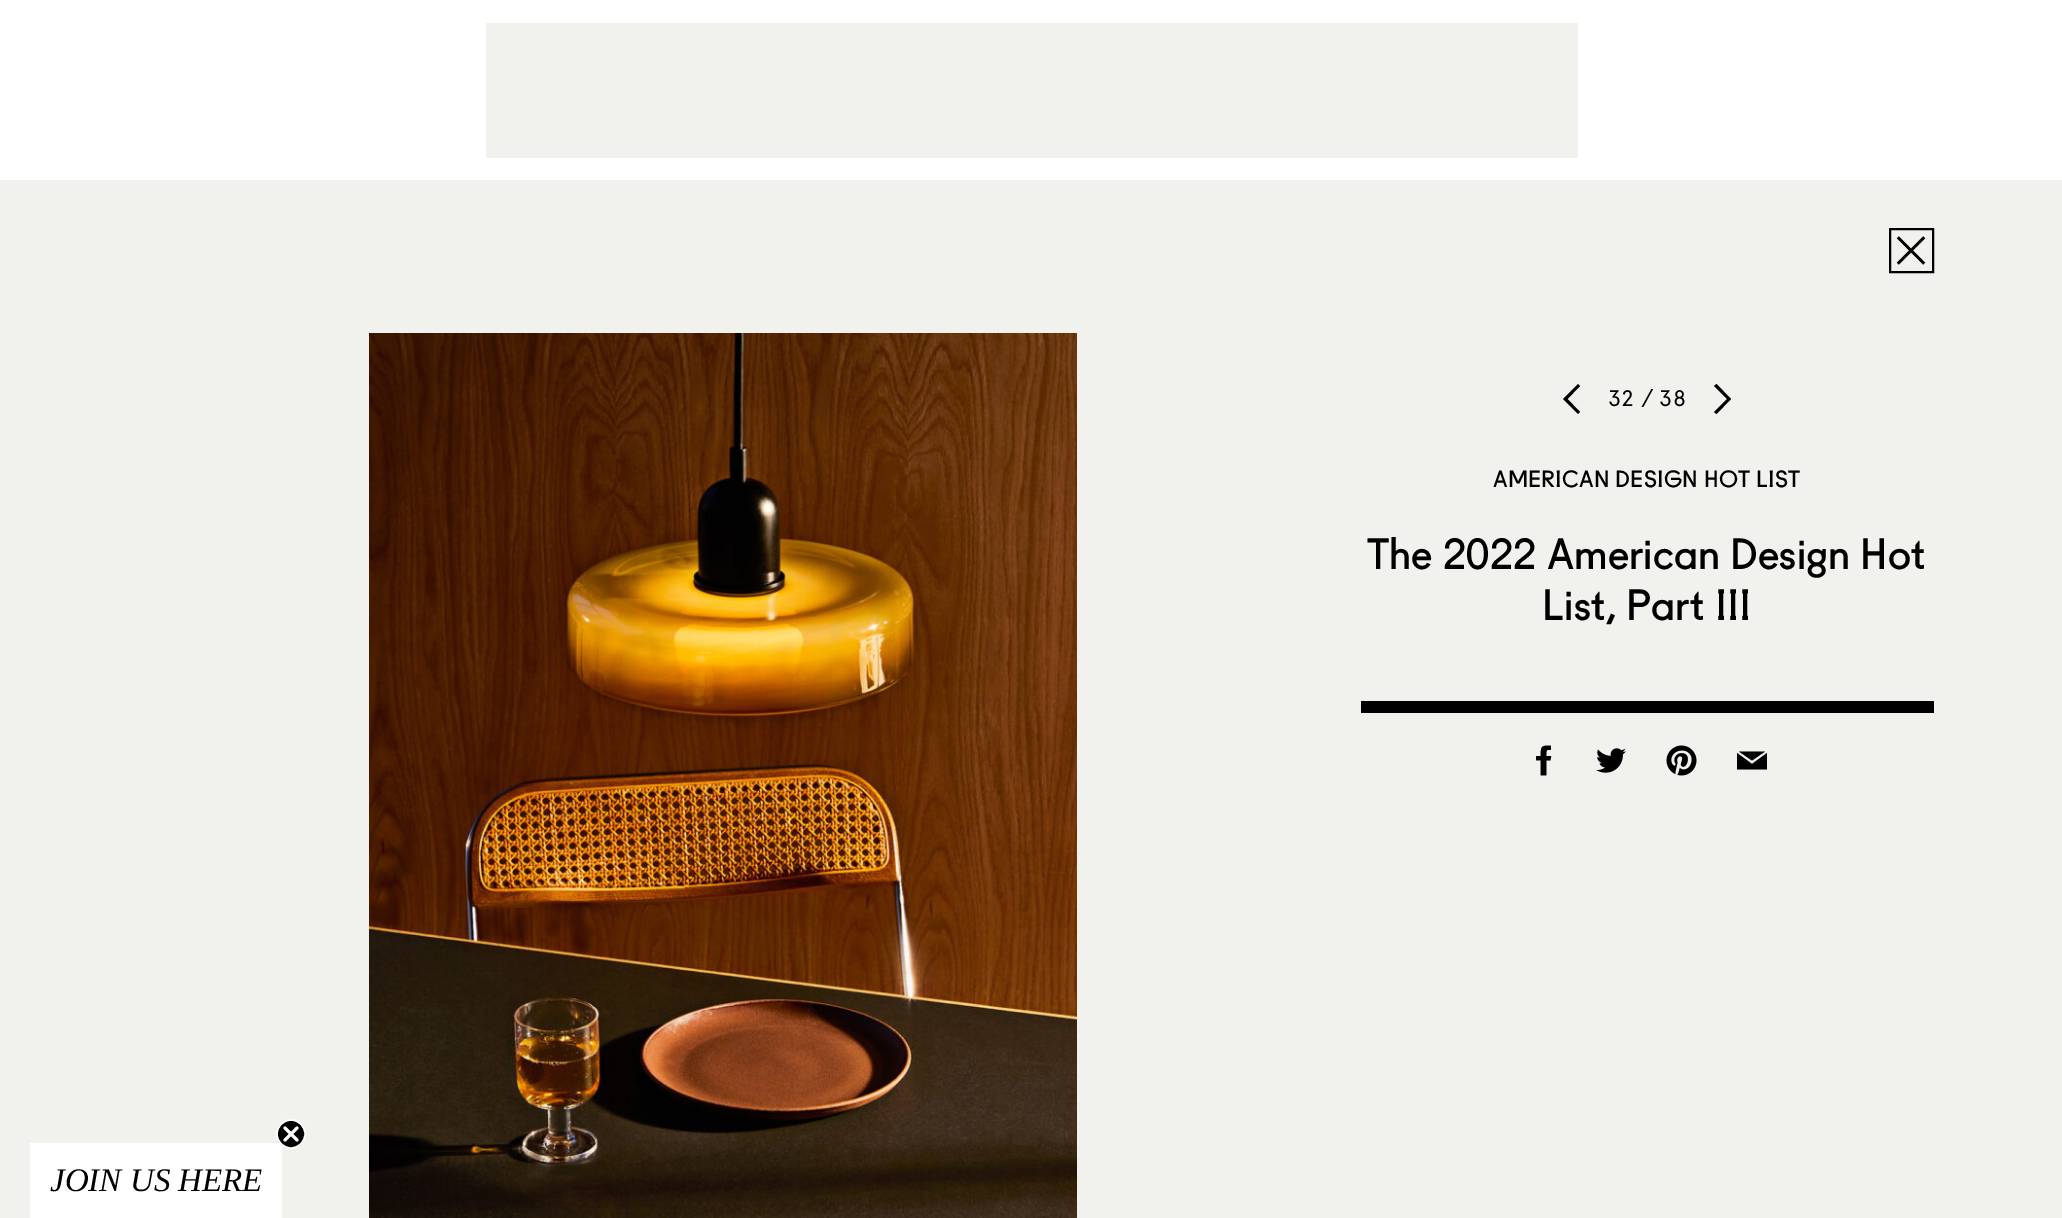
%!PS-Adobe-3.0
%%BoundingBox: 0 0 2062 1218
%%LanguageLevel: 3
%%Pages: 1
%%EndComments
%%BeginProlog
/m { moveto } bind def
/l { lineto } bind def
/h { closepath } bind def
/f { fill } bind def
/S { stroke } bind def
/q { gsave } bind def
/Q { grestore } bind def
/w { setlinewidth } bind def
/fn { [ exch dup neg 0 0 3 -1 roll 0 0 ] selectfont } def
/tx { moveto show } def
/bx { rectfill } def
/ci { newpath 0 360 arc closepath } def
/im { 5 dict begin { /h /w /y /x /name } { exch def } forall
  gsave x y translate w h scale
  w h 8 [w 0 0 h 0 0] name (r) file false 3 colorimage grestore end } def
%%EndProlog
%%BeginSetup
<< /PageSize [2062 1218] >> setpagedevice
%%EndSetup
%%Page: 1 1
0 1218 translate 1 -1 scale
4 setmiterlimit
0.945 0.945 0.929 setrgbcolor
0 0 2062 1218 bx
1 setgray
0 0 2062 180 bx
0.945 0.945 0.929 setrgbcolor
486 23 1092 135 bx
0 setgray
2 w
1890 229 43 43 rectstroke
(image0.raw) 1896 236 30 29 im
(image1.raw) 369 333 708 885 im
1580 412 m 1566.5 398 l 1566.5 400 l 1580 386 l 1578 384 l 1563 399 l 1578 414 l h f
/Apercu-Regular 22.5 fn
1608 406 m 0.25 0 (32 / 38) ashow
1714 386 m 1728 400 l 1728 398 l 1714 412 l 1716.5 414 l 1731 399 l 1716.5 384 l h f
/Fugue-Regular 22.5 fn
1493 487 m 0.25 0 (AMERICAN DESIGN HOT LIST) ashow
/Fugue-Regular 42 fn
1367 569 m 0.2 0 (The 2022 American Design Hot) ashow
1542 620 m 0.2 0 (List, Part III) ashow
1361 701 573 12 bx
(image2.raw) 1536 745 16 31 im
(image3.raw) 1596 748 30 25 im
(image4.raw) 1666 745 31 31 im
1765 751.5 m 1739 751.5 l 1752 760.5 l h 1752 764 m 1737 753 l 1737 769.5 l 1767 769.5 l 1767 753 l h f
1 setgray
30 1143 252 75 bx
0 setgray
291 1134 14 ci q f Q
1 setgray
1.5 w
S
3 w
1 setlinecap
1 setlinejoin
285 1128 m 297 1140 l 285 1140 m 297 1128 l h S
/LiberationSerif-Italic 33 fn
0 setgray
(JOIN US HERE) 50 1191 tx
showpage
%%EOF
